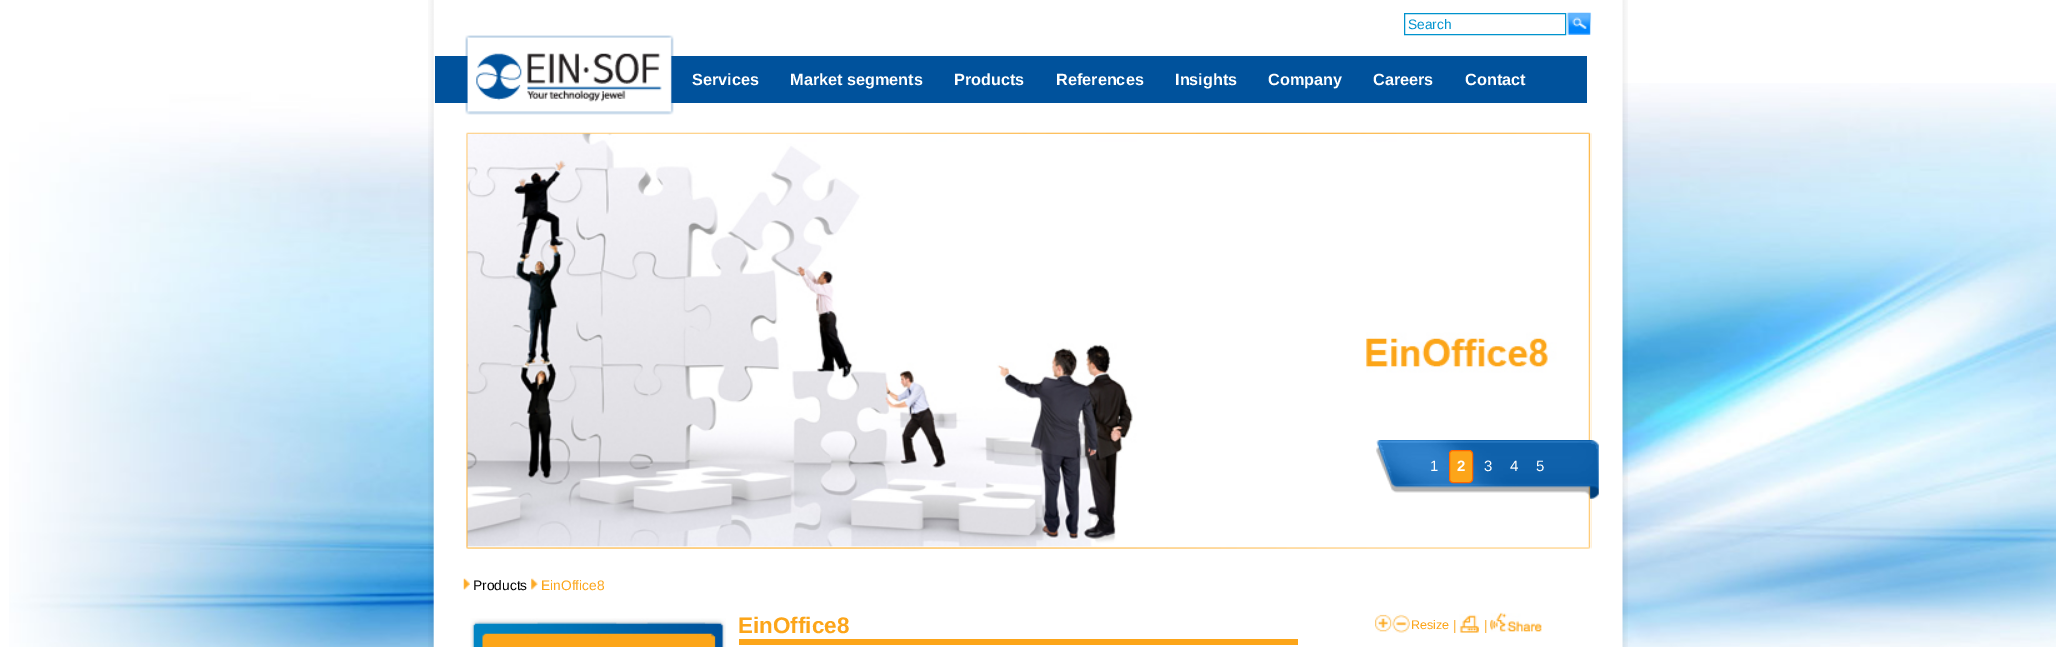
%!PS-Adobe-3.0
%%BoundingBox: 0 0 2056 647
%%LanguageLevel: 3
%%Pages: 1
%%EndComments
%%BeginProlog
/f { fill } bind def
/S { stroke } bind def
/q { gsave } bind def
/Q { grestore } bind def
/fn { [ exch dup neg 0 0 3 -1 roll 0 0 ] selectfont } def
/tx { moveto show } def
/bx { rectfill } def
/rr { 5 dict begin { /r /h /w /y /x } { exch def } forall
  x r add y moveto x w add y 2 copy h add r arct x w add y h add x 1 index r arct
  x y h add x y r arct x y 2 copy exch w add exch r arct closepath end } def
/im { 5 dict begin { /h /w /y /x /name } { exch def } forall
  gsave x y translate w h scale
  w h 8 [w 0 0 h 0 0] name (r) file false 3 colorimage grestore end } def
%%EndProlog
%%BeginSetup
<< /PageSize [2056 647] >> setpagedevice
%%EndSetup
%%Page: 1 1
0 647 translate 1 -1 scale
4 setmiterlimit
1 setgray
0 0 2056 647 bx
(image0.raw) 9 83 2047 564 im
(image1.raw) 428 0 1200 647 im
0 0.576 0.808 setrgbcolor
1404.5 13.5 161 21 rectstroke
/LiberationSans-Regular 13.75 fn
(Search) 1408 29 tx
(image2.raw) 1567 12 25 23 im
0 0.322 0.612 setrgbcolor
435 56 1152 47 bx
(image3.raw) 465 35 209 80 im
/LiberationSans-Bold 16.25 fn
1 setgray
(Services) 692 85 tx
(Market segments) 790 85 tx
(Products) 954 85 tx
(References) 1056 85 tx
(Insights) 1175 85 tx
(Company) 1268 85 tx
(Careers) 1373 85 tx
(Contact) 1465 85 tx
(image4.raw) 466 132 1125 417 im
(image5.raw) 1591 133 1 416 im
(image6.raw) 1376 440 223 59 im
/LiberationSans-Regular 15 fn
(1) 1430 471 tx
0.988 0.647 0.098 setrgbcolor
1449.5 450.5 23 32 3.5 rr q f Q
1 0.4 0 setrgbcolor
S
/LiberationSans-Bold 15 fn
1 setgray
(2) 1457 471 tx
/LiberationSans-Regular 15 fn
(3) 1484 471 tx
(4) 1510 471 tx
(5) 1536 471 tx
(image7.raw) 463 578 7 12 im
/LiberationSans-Regular 13.75 fn
0 setgray
(Products) 473 590 tx
(image8.raw) 531 578 7 12 im
0.988 0.647 0.098 setrgbcolor
(EinOffice8) 541 590 tx
(image9.raw) 470 618 256 29 im
/LiberationSans-Bold 22.5 fn
(EinOffice8) 738 633 tx
739 639 559 6 bx
(image10.raw) 1375 614 17 18 im
(image11.raw) 1392 614 18 19 im
/LiberationSans-Regular 12.5 fn
(Resize) 1411 629 tx
/LiberationSans-Regular 13.75 fn
(|) 1453 630 tx
(image12.raw) 1459 614 20 19 im
(|) 1484 630 tx
(image13.raw) 1490 612 52 20 im
showpage
%%EOF
